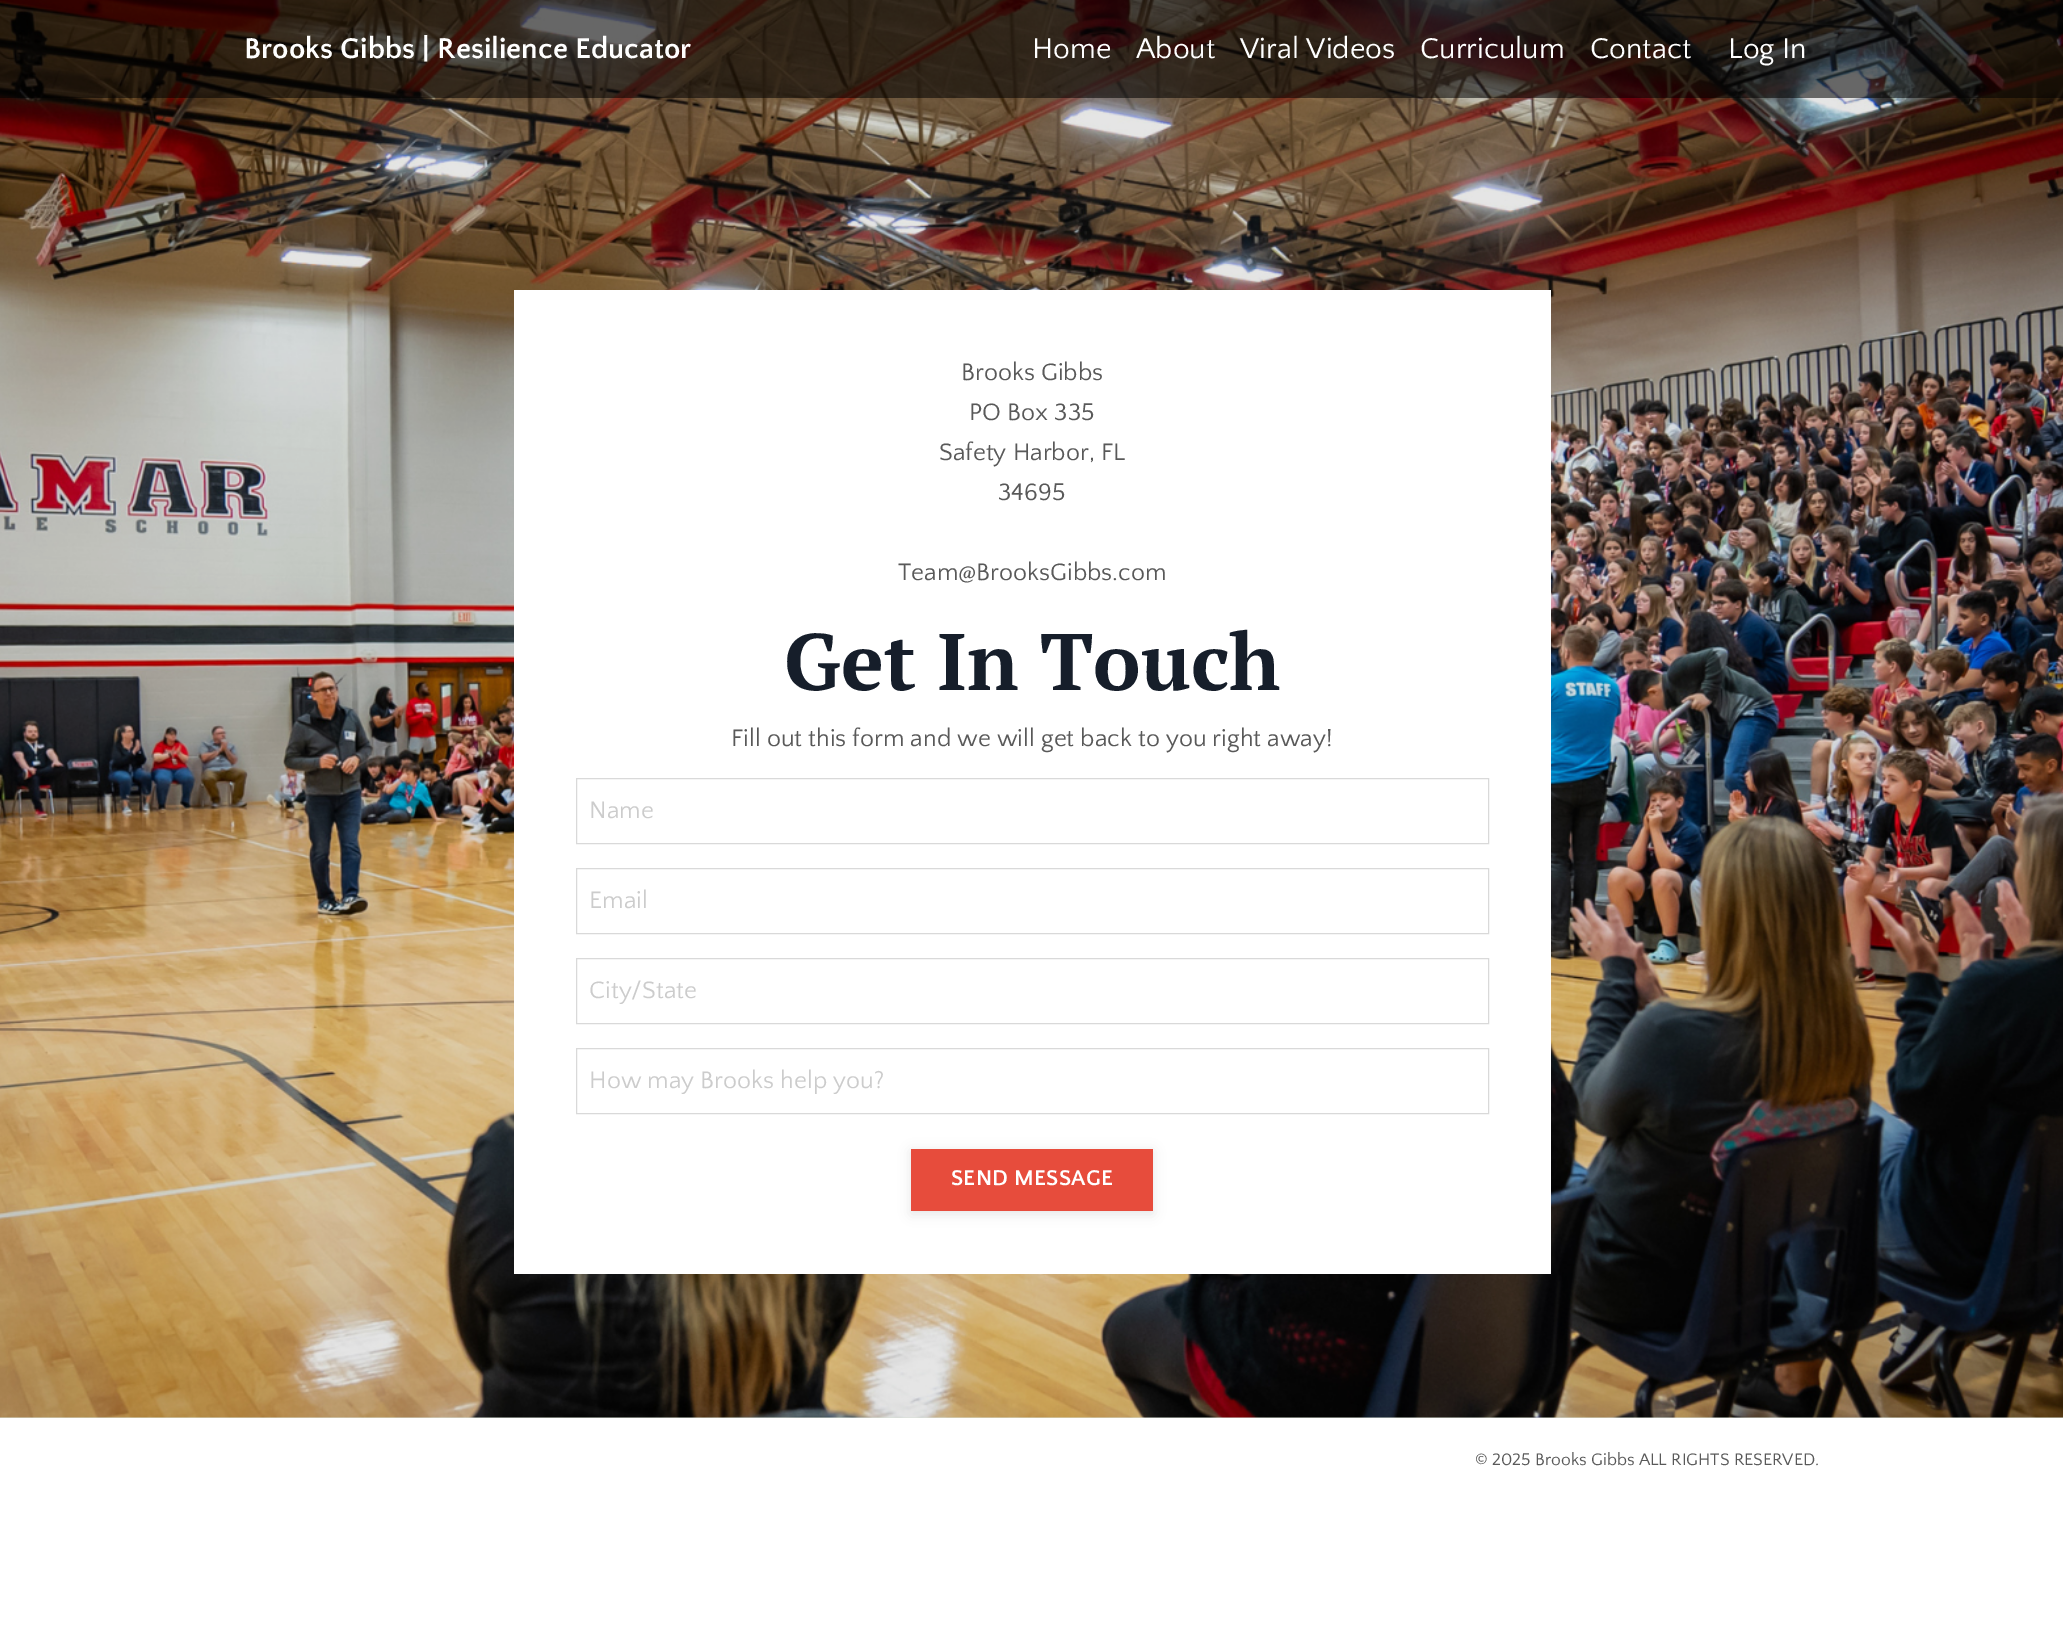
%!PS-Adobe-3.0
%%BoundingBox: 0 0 2063 1646
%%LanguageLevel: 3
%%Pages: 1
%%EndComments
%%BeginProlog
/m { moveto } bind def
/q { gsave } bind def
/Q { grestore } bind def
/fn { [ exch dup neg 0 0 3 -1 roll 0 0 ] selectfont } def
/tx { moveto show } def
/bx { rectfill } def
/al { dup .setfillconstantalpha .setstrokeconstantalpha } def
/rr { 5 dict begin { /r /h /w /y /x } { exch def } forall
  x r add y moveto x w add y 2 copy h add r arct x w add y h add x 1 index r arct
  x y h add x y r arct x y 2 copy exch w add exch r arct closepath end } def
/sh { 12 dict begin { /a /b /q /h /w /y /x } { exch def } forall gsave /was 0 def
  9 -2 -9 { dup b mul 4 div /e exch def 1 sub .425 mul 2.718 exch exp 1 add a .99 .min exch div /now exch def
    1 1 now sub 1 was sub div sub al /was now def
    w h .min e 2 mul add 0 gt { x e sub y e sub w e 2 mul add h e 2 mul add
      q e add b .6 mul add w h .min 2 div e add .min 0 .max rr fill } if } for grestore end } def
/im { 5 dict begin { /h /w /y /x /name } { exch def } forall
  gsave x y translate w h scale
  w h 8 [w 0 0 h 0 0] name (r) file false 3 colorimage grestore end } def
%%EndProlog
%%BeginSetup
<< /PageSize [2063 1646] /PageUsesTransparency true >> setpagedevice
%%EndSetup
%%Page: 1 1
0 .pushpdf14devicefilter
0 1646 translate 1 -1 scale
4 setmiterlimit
0.851 0.882 0.839 setrgbcolor
0 0 2063 1646 bx
(image0.raw) 0 0 2063 1418 im
0.55 al
0 setgray
0 0 2063 98 bx
/QuattrocentoSans-Bold 30 fn
1 al
1 setgray
(Brooks Gibbs | Resilience Educator) 244 58 tx
/QuattrocentoSans-Regular 30 fn
(Home) 1032 58 tx
(About) 1136 58 tx
(Viral Videos) 1240 58 tx
(Curriculum) 1420 58 tx
(Contact) 1590 58 tx
(Log In) 1728 58 tx
514 290 1037 984 bx
/QuattrocentoSans-Regular 25 fn
0.349 setgray
(Brooks Gibbs) 961 380 tx
(PO Box 335) 969 420 tx
(Safety Harbor, FL) 939 460 tx
(34695) 998 500 tx
(Team@BrooksGibbs.com) 898 580 tx
/PTSerif-Bold 80 fn
0.086 0.118 0.165 setrgbcolor
(Get In Touch) 784 690 tx
/QuattrocentoSans-Regular 25 fn
0.349 setgray
(Fill out this form and we will get back to you right away!) 731 746 tx
0.851 setgray
576.5 778.5 912 65 rectstroke
0.8 setgray
(Name) 589 818 tx
0.851 setgray
576.5 868.5 912 65 rectstroke
0.8 setgray
(Email) 589 908 tx
0.851 setgray
576.5 958.5 912 65 rectstroke
q
590 976 885 28 rectclip
0.8 setgray
(City/State) 589 998 tx
Q
576.5 1048.5 912 65 rectstroke
q
590 1066 885 28 rectclip
0.8 setgray
(How may Brooks help you?) 589 1088 tx
Q
0 setgray
911 1151 242 63 0 6 0.1 sh
0.906 0.298 0.235 setrgbcolor
911 1149 242 62 bx
/QuattrocentoSans-Bold 22.5 fn
1 setgray
951 1185 m 0.25 0 (SEND MESSAGE) ashow
0 1418 2063 228 bx
/QuattrocentoSans-Regular 17.5 fn
0.349 setgray
(© 2025 Brooks Gibbs ALL RIGHTS RESERVED.) 1475 1465 tx
.poppdf14devicefilter showpage
%%EOF
